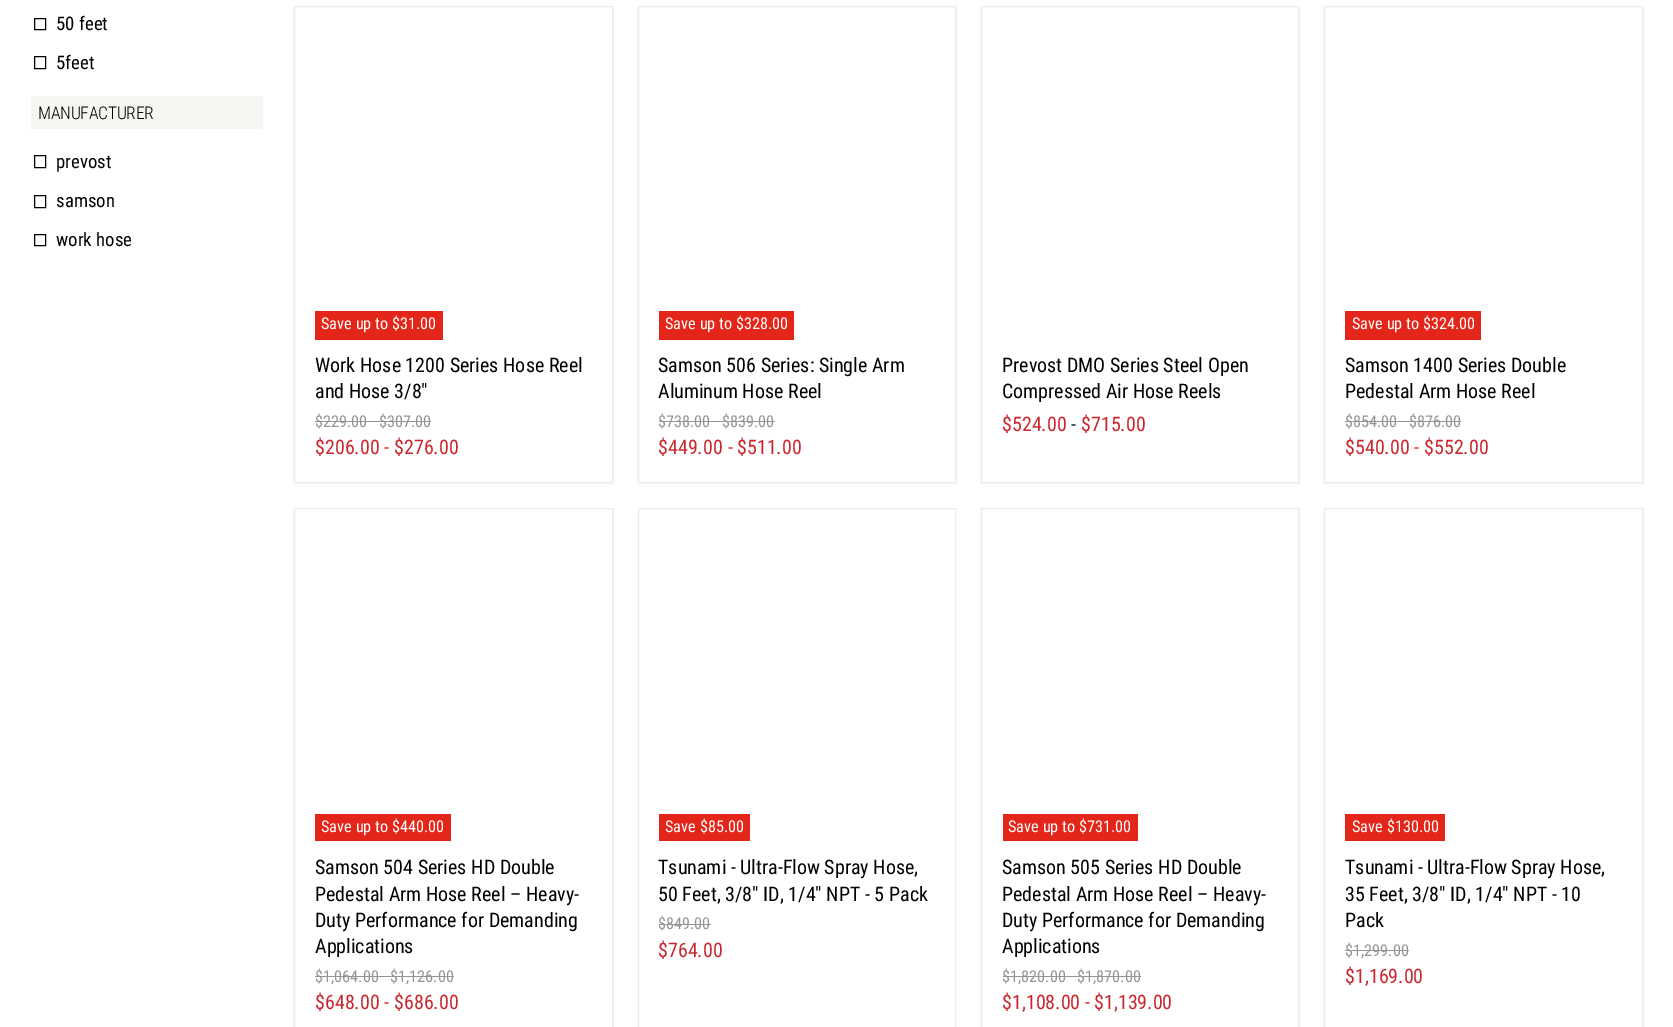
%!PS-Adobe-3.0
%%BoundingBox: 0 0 1673 1027
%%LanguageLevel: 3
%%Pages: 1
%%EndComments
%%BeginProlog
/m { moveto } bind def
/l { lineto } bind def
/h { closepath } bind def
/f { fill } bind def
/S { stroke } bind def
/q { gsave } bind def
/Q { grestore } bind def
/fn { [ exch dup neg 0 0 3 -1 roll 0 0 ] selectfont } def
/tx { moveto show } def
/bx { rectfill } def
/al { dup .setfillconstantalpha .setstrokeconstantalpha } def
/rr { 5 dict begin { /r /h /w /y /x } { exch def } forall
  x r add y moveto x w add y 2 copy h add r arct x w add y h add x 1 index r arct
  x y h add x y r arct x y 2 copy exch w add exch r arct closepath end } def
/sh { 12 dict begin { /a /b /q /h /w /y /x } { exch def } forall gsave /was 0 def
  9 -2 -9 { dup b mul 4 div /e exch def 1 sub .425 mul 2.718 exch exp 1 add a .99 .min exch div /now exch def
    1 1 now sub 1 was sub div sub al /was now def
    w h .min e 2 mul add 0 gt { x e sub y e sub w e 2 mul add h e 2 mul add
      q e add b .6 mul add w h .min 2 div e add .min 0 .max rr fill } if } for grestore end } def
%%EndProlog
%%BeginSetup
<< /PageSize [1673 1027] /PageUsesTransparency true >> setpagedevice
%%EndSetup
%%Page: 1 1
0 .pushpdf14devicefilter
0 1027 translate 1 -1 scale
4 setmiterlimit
1 setgray
0 0 1673 1027 bx
0 setgray
34.5 18.5 11 11 rectstroke
/RobotoCondensed-Regular 18.75 fn
(50 feet) 56 30 tx
34.5 56.5 11 12 rectstroke
(5feet) 56 69 tx
0.969 0.961 0.945 setrgbcolor
31 96 232 33 bx
/RobotoCondensed-Light 17.5 fn
0 setgray
38 119 m -0.25 0 (MANUFACTURER) ashow
34.5 155.5 11 12 rectstroke
/RobotoCondensed-Regular 18.75 fn
(prevost) 56 168 tx
34.5 195.5 11 12 rectstroke
(samson) 56 207 tx
34.5 234.5 11 11 rectstroke
(work hose) 56 246 tx
0.502 setgray
294 8 319 476 0 2.5 0.11 sh
1 setgray
294.5 6.5 m 612.5 6.5 l 612.5 482.5 l 294.5 482.5 l h q f Q
0.922 setgray
S
0.89 0.149 0.098 setrgbcolor
315 311 128 29 bx
/RobotoCondensed-Regular 16.25 fn
1 setgray
(Save up to $31.00) 321 329 tx
/RobotoCondensed-Regular 20 fn
0 setgray
(Work Hose 1200 Series Hose Reel) 315 372 tx
(and Hose 3/8") 315 398 tx
/RobotoCondensed-Regular 16.25 fn
0.58 setgray
($229.00) 315 427 tx
315 421 64 1 bx
($307.00) 379 427 tx
379 421 52 1 bx
/RobotoCondensed-Regular 20 fn
0.788 0.149 0.18 setrgbcolor
($206.00) 315 454 tx
0.89 0.149 0.098 setrgbcolor
(-) 384 454 tx
0.788 0.149 0.18 setrgbcolor
($276.00) 394 454 tx
0.502 setgray
638 8 318 476 0 2.5 0.11 sh
1 setgray
638.5 6.5 m 955.5 6.5 l 955.5 482.5 l 638.5 482.5 l h q f Q
0.922 setgray
S
0.89 0.149 0.098 setrgbcolor
659 311 135 29 bx
/RobotoCondensed-Regular 16.25 fn
1 setgray
(Save up to $328.00) 665 329 tx
/RobotoCondensed-Regular 20 fn
0 setgray
(Samson 506 Series: Single Arm) 658 372 tx
(Aluminum Hose Reel) 658 398 tx
/RobotoCondensed-Regular 16.25 fn
0.58 setgray
($738.00) 658 427 tx
659 421 64 1 bx
($839.00) 722 427 tx
723 421 52 1 bx
/RobotoCondensed-Regular 20 fn
0.788 0.149 0.18 setrgbcolor
($449.00) 658 454 tx
0.89 0.149 0.098 setrgbcolor
(-) 728 454 tx
0.788 0.149 0.18 setrgbcolor
($511.00) 737 454 tx
0.502 setgray
981 8 318 476 0 2.5 0.11 sh
1 setgray
981.5 6.5 m 1298.5 6.5 l 1298.5 482.5 l 981.5 482.5 l h q f Q
0.922 setgray
S
0 setgray
(Prevost DMO Series Steel Open) 1002 372 tx
(Compressed Air Hose Reels) 1002 398 tx
0.788 0.149 0.18 setrgbcolor
($524.00) 1002 431 tx
0.09 0.122 0.169 setrgbcolor
(-) 1071 431 tx
0.788 0.149 0.18 setrgbcolor
($715.00) 1081 431 tx
0.502 setgray
1324 8 319 476 0 2.5 0.11 sh
1 setgray
1324.5 6.5 m 1642.5 6.5 l 1642.5 482.5 l 1324.5 482.5 l h q f Q
0.922 setgray
S
0.89 0.149 0.098 setrgbcolor
1345 311 136 29 bx
/RobotoCondensed-Regular 16.25 fn
1 setgray
(Save up to $324.00) 1352 329 tx
/RobotoCondensed-Regular 20 fn
0 setgray
(Samson 1400 Series Double) 1345 372 tx
(Pedestal Arm Hose Reel) 1345 398 tx
/RobotoCondensed-Regular 16.25 fn
0.58 setgray
($854.00) 1345 427 tx
1345 421 64 1 bx
($876.00) 1409 427 tx
1409 421 52 1 bx
/RobotoCondensed-Regular 20 fn
0.788 0.149 0.18 setrgbcolor
($540.00) 1345 454 tx
0.89 0.149 0.098 setrgbcolor
(-) 1414 454 tx
0.788 0.149 0.18 setrgbcolor
($552.00) 1424 454 tx
0.502 setgray
294 509 319 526 0 2.5 0.11 sh
1 setgray
294.5 508.5 m 612.5 508.5 l 612.5 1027.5 l 294.5 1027.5 l h q f Q
0.922 setgray
S
0.89 0.149 0.098 setrgbcolor
315 814 136 27 bx
/RobotoCondensed-Regular 16.25 fn
1 setgray
(Save up to $440.00) 321 832 tx
/RobotoCondensed-Regular 20 fn
0 setgray
(Samson 504 Series HD Double) 315 874 tx
(Pedestal Arm Hose Reel – Heavy-) 315 901 tx
(Duty Performance for Demanding) 315 927 tx
(Applications) 315 953 tx
/RobotoCondensed-Regular 16.25 fn
0.58 setgray
($1,064.00) 315 982 tx
315 976 75 1 bx
($1,126.00) 390 982 tx
390 976 64 1 bx
/RobotoCondensed-Regular 20 fn
0.788 0.149 0.18 setrgbcolor
($648.00) 315 1009 tx
0.89 0.149 0.098 setrgbcolor
(-) 384 1009 tx
0.788 0.149 0.18 setrgbcolor
($686.00) 394 1009 tx
0.922 setgray
638.5 508.5 317 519 rectstroke
0.89 0.149 0.098 setrgbcolor
659 814 91 27 bx
/RobotoCondensed-Regular 16.25 fn
1 setgray
(Save $85.00) 665 832 tx
/RobotoCondensed-Regular 20 fn
0 setgray
(Tsunami - Ultra-Flow Spray Hose,) 658 874 tx
(50 Feet, 3/8" ID, 1/4" NPT - 5 Pack) 658 901 tx
/RobotoCondensed-Regular 16.25 fn
0.58 setgray
($849.00) 658 929 tx
659 924 52 1 bx
/RobotoCondensed-Regular 20 fn
0.788 0.149 0.18 setrgbcolor
($764.00) 658 957 tx
0.502 setgray
981 509 318 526 0 2.5 0.11 sh
1 setgray
981.5 508.5 m 1298.5 508.5 l 1298.5 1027.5 l 981.5 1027.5 l h q f Q
0.922 setgray
S
0.89 0.149 0.098 setrgbcolor
1003 814 135 27 bx
/RobotoCondensed-Regular 16.25 fn
1 setgray
(Save up to $731.00) 1008 832 tx
/RobotoCondensed-Regular 20 fn
0 setgray
(Samson 505 Series HD Double) 1002 874 tx
(Pedestal Arm Hose Reel – Heavy-) 1002 901 tx
(Duty Performance for Demanding) 1002 927 tx
(Applications) 1002 953 tx
/RobotoCondensed-Regular 16.25 fn
0.58 setgray
($1,820.00) 1002 982 tx
1003 976 75 1 bx
($1,870.00) 1077 982 tx
1078 976 63 1 bx
/RobotoCondensed-Regular 20 fn
0.788 0.149 0.18 setrgbcolor
($1,108.00) 1002 1009 tx
0.89 0.149 0.098 setrgbcolor
(-) 1085 1009 tx
0.788 0.149 0.18 setrgbcolor
($1,139.00) 1094 1009 tx
0.502 setgray
1324 509 319 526 0 2.5 0.11 sh
1 setgray
1324.5 508.5 m 1642.5 508.5 l 1642.5 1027.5 l 1324.5 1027.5 l h q f Q
0.922 setgray
S
0.89 0.149 0.098 setrgbcolor
1345 814 100 27 bx
/RobotoCondensed-Regular 16.25 fn
1 setgray
(Save $130.00) 1352 832 tx
/RobotoCondensed-Regular 20 fn
0 setgray
(Tsunami - Ultra-Flow Spray Hose,) 1345 874 tx
(35 Feet, 3/8" ID, 1/4" NPT - 10) 1345 901 tx
(Pack) 1345 927 tx
/RobotoCondensed-Regular 16.25 fn
0.58 setgray
($1,299.00) 1345 956 tx
1345 950 64 1 bx
/RobotoCondensed-Regular 20 fn
0.788 0.149 0.18 setrgbcolor
($1,169.00) 1345 983 tx
.poppdf14devicefilter showpage
%%EOF
